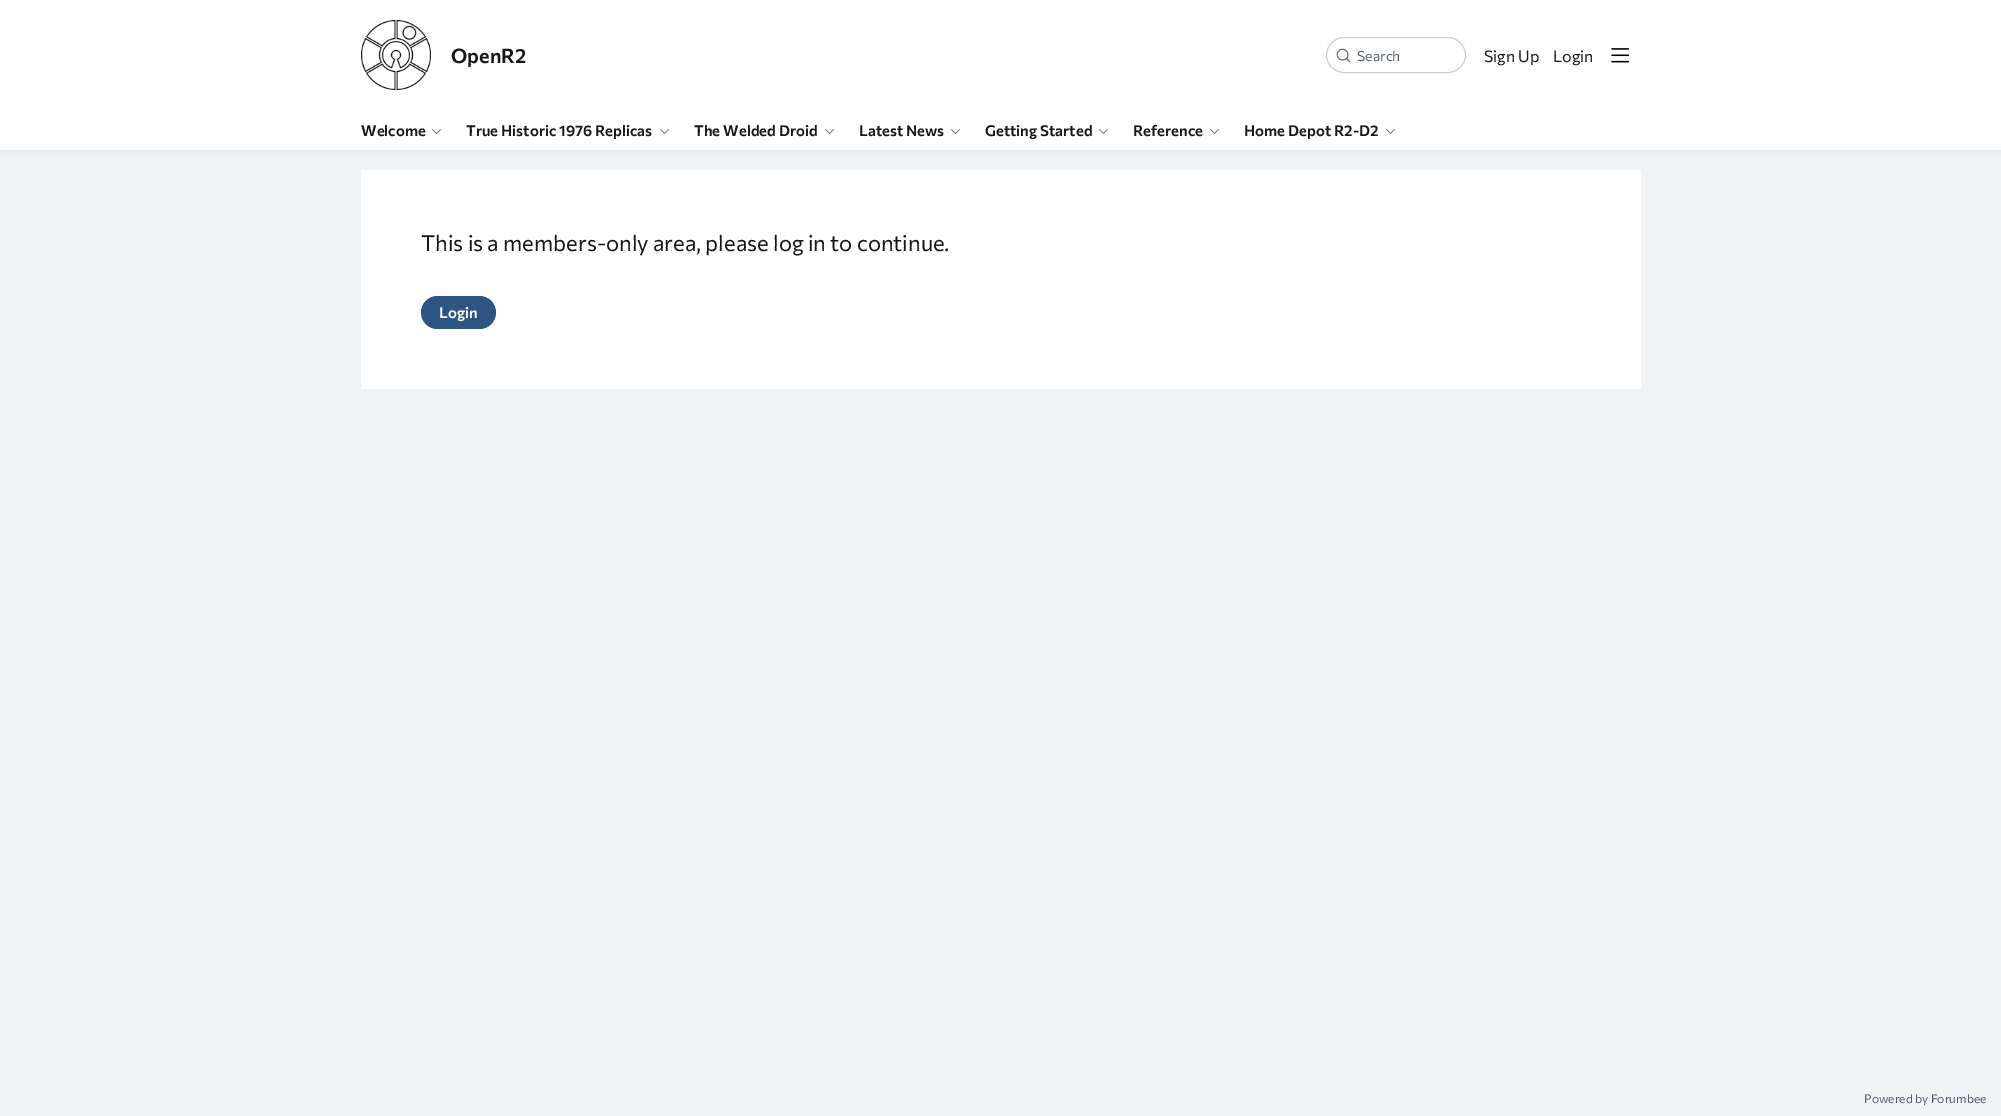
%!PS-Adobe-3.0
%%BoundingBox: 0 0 2001 1116
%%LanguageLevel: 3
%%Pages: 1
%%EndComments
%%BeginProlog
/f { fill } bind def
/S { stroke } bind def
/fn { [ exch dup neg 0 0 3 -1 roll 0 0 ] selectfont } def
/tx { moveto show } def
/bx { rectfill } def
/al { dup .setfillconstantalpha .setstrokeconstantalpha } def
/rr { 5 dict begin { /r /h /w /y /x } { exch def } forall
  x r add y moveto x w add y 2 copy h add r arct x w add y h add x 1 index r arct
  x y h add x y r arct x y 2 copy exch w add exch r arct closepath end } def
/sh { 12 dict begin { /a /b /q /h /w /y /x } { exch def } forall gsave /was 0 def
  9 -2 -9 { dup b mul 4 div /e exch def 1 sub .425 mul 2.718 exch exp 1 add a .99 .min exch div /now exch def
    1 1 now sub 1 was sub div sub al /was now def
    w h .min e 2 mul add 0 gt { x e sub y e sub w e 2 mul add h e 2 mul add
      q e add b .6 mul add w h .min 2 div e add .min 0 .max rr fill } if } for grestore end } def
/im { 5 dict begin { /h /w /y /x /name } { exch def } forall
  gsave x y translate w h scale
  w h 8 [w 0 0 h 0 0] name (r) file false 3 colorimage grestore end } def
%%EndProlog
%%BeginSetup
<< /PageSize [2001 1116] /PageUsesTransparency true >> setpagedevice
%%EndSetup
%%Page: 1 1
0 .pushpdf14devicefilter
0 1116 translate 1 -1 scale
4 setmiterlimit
0.945 0.957 0.969 setrgbcolor
0 0 2001 1116 bx
1 setgray
0 0 2001 110 bx
(image0.raw) 361 20 70 70 im
/Commissioner-SemiBold 20 fn
0.09 setgray
(OpenR2) 451 63 tx
0.788 0.816 0.831 setrgbcolor
1326.5 37.5 139 35 17.5 rr S
(image1.raw) 1336 48 15 15 im
/Commissioner-Regular 14 fn
0.333 0.365 0.435 setrgbcolor
(Search) 1357 61 tx
/Commissioner-Regular 16 fn
0.09 setgray
(Sign Up) 1484 62 tx
(Login) 1553 62 tx
(image2.raw) 1611 48 19 15 im
0.243 0.224 0.42 setrgbcolor
0 113 2001 40 0 3 0.06 sh
1 setgray
0 110 2001 40 bx
/Commissioner-SemiBold 15 fn
0.09 setgray
(Welcome) 361 136 tx
(image3.raw) 432 129 9 5 im
(True Historic 1976 Replicas) 466 136 tx
(image3.raw) 660 129 9 5 im
(The Welded Droid) 694 136 tx
(image3.raw) 825 129 9 5 im
(Latest News) 859 136 tx
(image3.raw) 951 129 9 5 im
(Getting Started) 985 136 tx
(image3.raw) 1099 129 9 5 im
(Reference) 1133 136 tx
(image3.raw) 1210 129 9 5 im
(Home Depot R2-D2) 1244 136 tx
(image3.raw) 1386 129 9 5 im
1 setgray
361 170 1280 219 bx
/Commissioner-Regular 22 fn
0.09 setgray
(This is a members-only area, please log in to continue.) 421 251 tx
0.18 0.329 0.522 setrgbcolor
421 296 75 33 16.5 rr f
/Commissioner-SemiBold 15 fn
1 setgray
(Login) 439 318 tx
/Commissioner-Regular 12 fn
0.333 0.365 0.435 setrgbcolor
(Powered by Forumbee) 1864 1103 tx
.poppdf14devicefilter showpage
%%EOF
